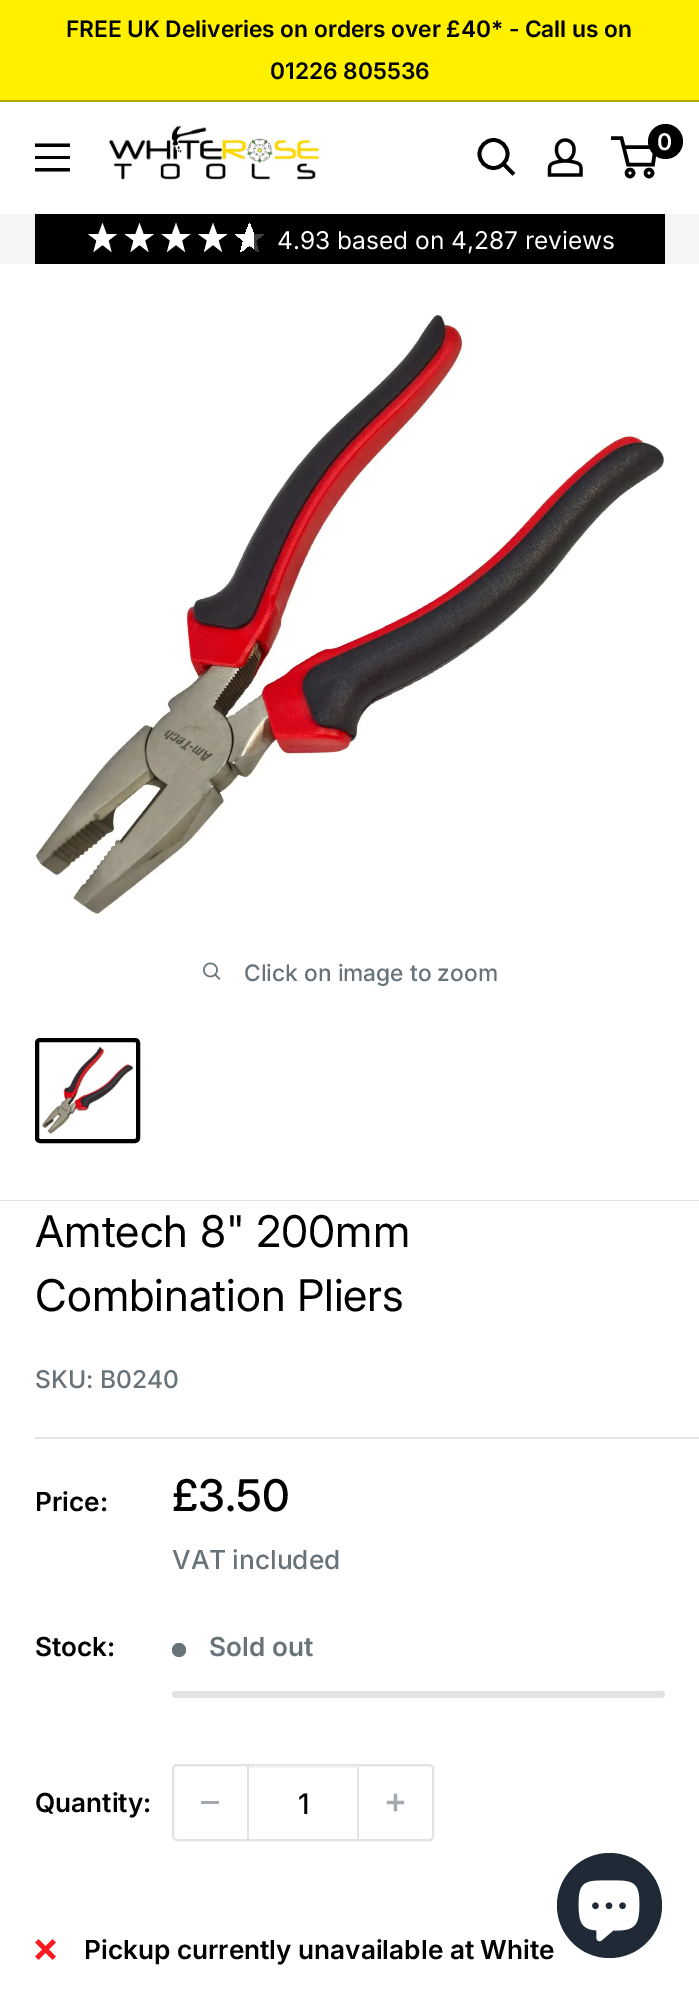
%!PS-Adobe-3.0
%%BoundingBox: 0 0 699 1994
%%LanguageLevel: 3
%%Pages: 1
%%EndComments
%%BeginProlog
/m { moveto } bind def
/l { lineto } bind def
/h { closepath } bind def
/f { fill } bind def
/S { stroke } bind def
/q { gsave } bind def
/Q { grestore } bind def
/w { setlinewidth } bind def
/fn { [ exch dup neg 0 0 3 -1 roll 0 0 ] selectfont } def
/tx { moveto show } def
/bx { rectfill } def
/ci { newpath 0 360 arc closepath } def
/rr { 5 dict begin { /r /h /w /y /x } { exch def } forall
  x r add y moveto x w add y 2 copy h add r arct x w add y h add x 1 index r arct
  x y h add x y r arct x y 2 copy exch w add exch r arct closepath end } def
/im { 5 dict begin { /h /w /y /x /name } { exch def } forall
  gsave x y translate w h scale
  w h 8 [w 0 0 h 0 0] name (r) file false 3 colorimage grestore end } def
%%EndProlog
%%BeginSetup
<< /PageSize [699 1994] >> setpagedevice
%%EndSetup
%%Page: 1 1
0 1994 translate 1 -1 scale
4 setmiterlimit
0.953 0.961 0.965 setrgbcolor
0 0 699 1994 bx
1 0.941 0 setrgbcolor
0 0 699 100 bx
0.702 0.659 0 setrgbcolor
0 100 699 2 bx
/Inter-SemiBold 22.75 fn
0 setgray
66 37 m -0.25 0 32 (FREE UK Deliveries on orders over £40* - Call us on) widthshow
(01226 805536) 270 79 tx
1 setgray
0 102 699 112 bx
0 setgray
35 168 m 70 168 l 70 171.5 l 35 171.5 l h 35 143.5 m 70 143.5 l 70 147 l 35 147 l h 35 156 m 70 156 l 70 159 l 35 159 l h eofill
(image0.raw) 109 126 213 54 im
3.7 w
2 setlinecap
512.5 173 m 503.5 164 l S
0 setlinecap
493.5 154 14 ci S
(image1.raw) 547 138 36 39 im
3.5 w
630 173 3.5 ci S
649 173 3.5 ci S
623.5 147 m 655.5 147 l 653 164.5 l 628 164.5 l 621.5 138 l 611 138 l S
665.5 141.5 17.5 ci f
/Inter-SemiBold 23 fn
1 setgray
(0) 657 150 tx
0 setgray
35 214 630 50 bx
1 setgray
102.5 223 m 98.5 234 l 88 234 l 96.5 240.5 l 93.5 252 l 102.5 245 l 111.5 252 l 108.5 240.5 l 117 234 l 106.5 234 l h f
139.5 223 m 135.5 234 l 124.5 234 l 133.5 240.5 l 130.5 252 l 139.5 245 l 148.5 252 l 145 240.5 l 154 234 l 143.5 234 l h f
176 223 m 172 234 l 161.5 234 l 170 240.5 l 167 252 l 176 245 l 185 252 l 182 240.5 l 190.5 234 l 180 234 l h f
213 223 m 209 234 l 198 234 l 207 240.5 l 204 252 l 213 245 l 222 252 l 218.5 240.5 l 227.5 234 l 217 234 l h f
q 249.5 223 m 245.5 234 l 235 234 l 243.5 240.5 l 240.5 252 l 249.5 245 l 258.5 252 l 255.5 240.5 l 264 234 l 253.5 234 l h clip newpath
<< /ShadingType 2 /ColorSpace /DeviceRGB /Coords [232 238 268 238] /Extend [true true] /Function << /FunctionType 3 /Domain [0 1] /Functions [<< /FunctionType 2 /Domain [0 1] /C0 [1 1 1] /C1 [1 1 1] /N 1 >> << /FunctionType 2 /Domain [0 1] /C0 [0.251 0.251 0.251] /C1 [0.251 0.251 0.251] /N 1 >>] /Bounds [0.6] /Encode [0 1 0 1] >> >> shfill Q
/Inter-Regular 24.5 fn
(4.93 based on 4,287 reviews) 277 249 tx
0 264 699 936 bx
0.882 0.89 0.894 setrgbcolor
0 1200 699 1 bx
(image2.raw) 35 315 630 601 im
(image3.raw) 203 962 18 18 im
/Inter-Medium 22.75 fn
0.404 0.447 0.475 setrgbcolor
(Click on image to zoom) 244 981 tx
0 setgray
4 w
37 1040 101 101 3 rr S
(image4.raw) 42 1045 91 89 im
1 setgray
0 1201 699 793 bx
/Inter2-Regular 43.75 fn
0 setgray
(Amtech 8" 200mm) 35 1247 tx
(Combination Pliers) 35 1311 tx
/Inter-Medium 24.5 fn
0.404 0.447 0.475 setrgbcolor
(SKU: B0240) 35 1388 tx
0.882 0.89 0.894 setrgbcolor
35 1437 664 2 bx
/Inter2-SemiBold 26.25 fn
0 setgray
(Price:) 35 1511 tx
/Inter2-Medium 43.75 fn
(£3.50) 172 1511 tx
/Inter-Medium 26.25 fn
0.404 0.447 0.475 setrgbcolor
172 1569 m -1 0 32 (VAT included) widthshow
/Inter2-SemiBold 26.25 fn
0 setgray
(Stock:) 35 1656 tx
0.404 0.447 0.475 setrgbcolor
179 1650 7 ci f
(Sold out) 209 1656 tx
0.882 0.89 0.894 setrgbcolor
172 1691 493 7 3.5 rr f
0 setgray
(Quantity:) 35 1812 tx
0.882 0.89 0.894 setrgbcolor
2 w
173 1765 260 75 4 rr S
0.643 0.667 0.686 setrgbcolor
201 1801 18 3 bx
0.953 0.957 0.957 setrgbcolor
249 1766 108 2 bx
0.882 0.89 0.894 setrgbcolor
357 1766 2 73 bx
247 1766 2 73 bx
/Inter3-Medium 28 fn
0 setgray
(1) 298 1814 tx
(image5.raw) 386 1793 19 19 im
(image6.raw) 35 1939 21 21 im
/Inter2-SemiBold 26.25 fn
(Pickup currently unavailable at White) 84 1959 tx
0.125 0.165 0.212 setrgbcolor
609.5 1905.5 52.5 ci f
(image7.raw) 578 1880 62 62 im
showpage
%%EOF
